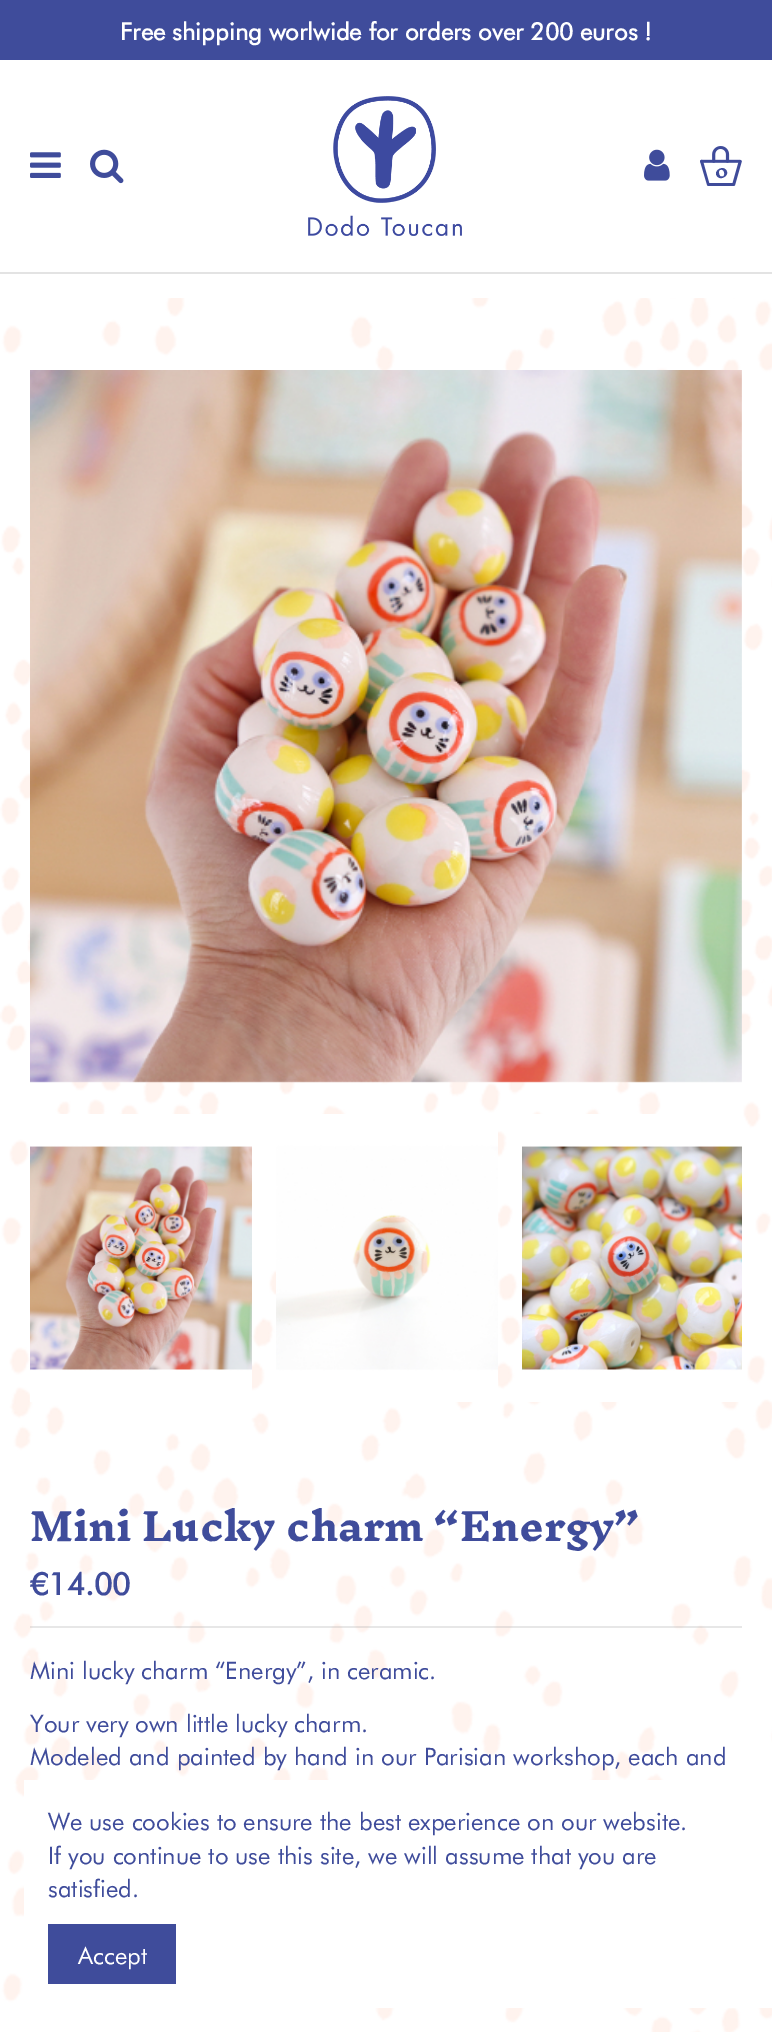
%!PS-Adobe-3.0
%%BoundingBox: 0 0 772 2032
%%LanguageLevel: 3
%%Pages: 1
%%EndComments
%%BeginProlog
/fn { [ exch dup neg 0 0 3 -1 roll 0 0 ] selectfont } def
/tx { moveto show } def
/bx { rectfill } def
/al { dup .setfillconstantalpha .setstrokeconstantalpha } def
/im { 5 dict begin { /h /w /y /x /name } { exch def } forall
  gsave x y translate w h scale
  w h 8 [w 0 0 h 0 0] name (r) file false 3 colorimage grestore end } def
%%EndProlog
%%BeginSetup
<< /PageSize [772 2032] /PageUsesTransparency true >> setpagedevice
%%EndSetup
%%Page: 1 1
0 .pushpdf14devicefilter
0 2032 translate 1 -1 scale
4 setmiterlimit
1 setgray
0 0 772 2032 bx
(image0.raw) 0 298 772 1734 im
0.247 0.298 0.608 setrgbcolor
0 0 772 60 bx
/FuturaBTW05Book-Bold 24 fn
1 setgray
(Free shipping worlwide for orders over 200 euros !) 120 40 tx
0.89 setgray
0 272 772 2 bx
(image1.raw) 30 152 31 26 im
(image2.raw) 90 149 34 35 im
(image3.raw) 308 96 154 140 im
(image4.raw) 644 149 26 32 im
(image5.raw) 700 146 42 40 im
/InknutAntiqua-Bold 17 fn
0.247 0.298 0.608 setrgbcolor
(0) 715 178 tx
(image6.raw) 30 370 712 713 im
(image7.raw) 30 1114 222 288 im
(image8.raw) 276 1114 222 288 im
(image9.raw) 522 1114 220 288 im
0.25 al
0.631 setgray
30 1626 712 2 bx
/InknutAntiqua-Bold 37.75 fn
1 al
0.247 0.298 0.608 setrgbcolor
(Mini Lucky charm “Energy”) 30 1541 tx
/FuturaBTW05Book-Bold 31 fn
(€14.00) 30 1595 tx
/FuturaBTW05Book-Regular 24 fn
(Mini lucky charm “Energy”, in ceramic.) 30 1679 tx
(Your very own little lucky charm.) 30 1732 tx
(Modeled and painted by hand in our Parisian workshop, each and) 30 1765 tx
1 setgray
24 1780 748 228 bx
0.247 0.298 0.608 setrgbcolor
(We use cookies to ensure the best experience on our website.) 48 1830 tx
(If you continue to use this site, we will assume that you are) 48 1864 tx
(satisfied.) 48 1897 tx
48 1924 128 60 bx
1 setgray
(Accept) 78 1964 tx
.poppdf14devicefilter showpage
%%EOF
